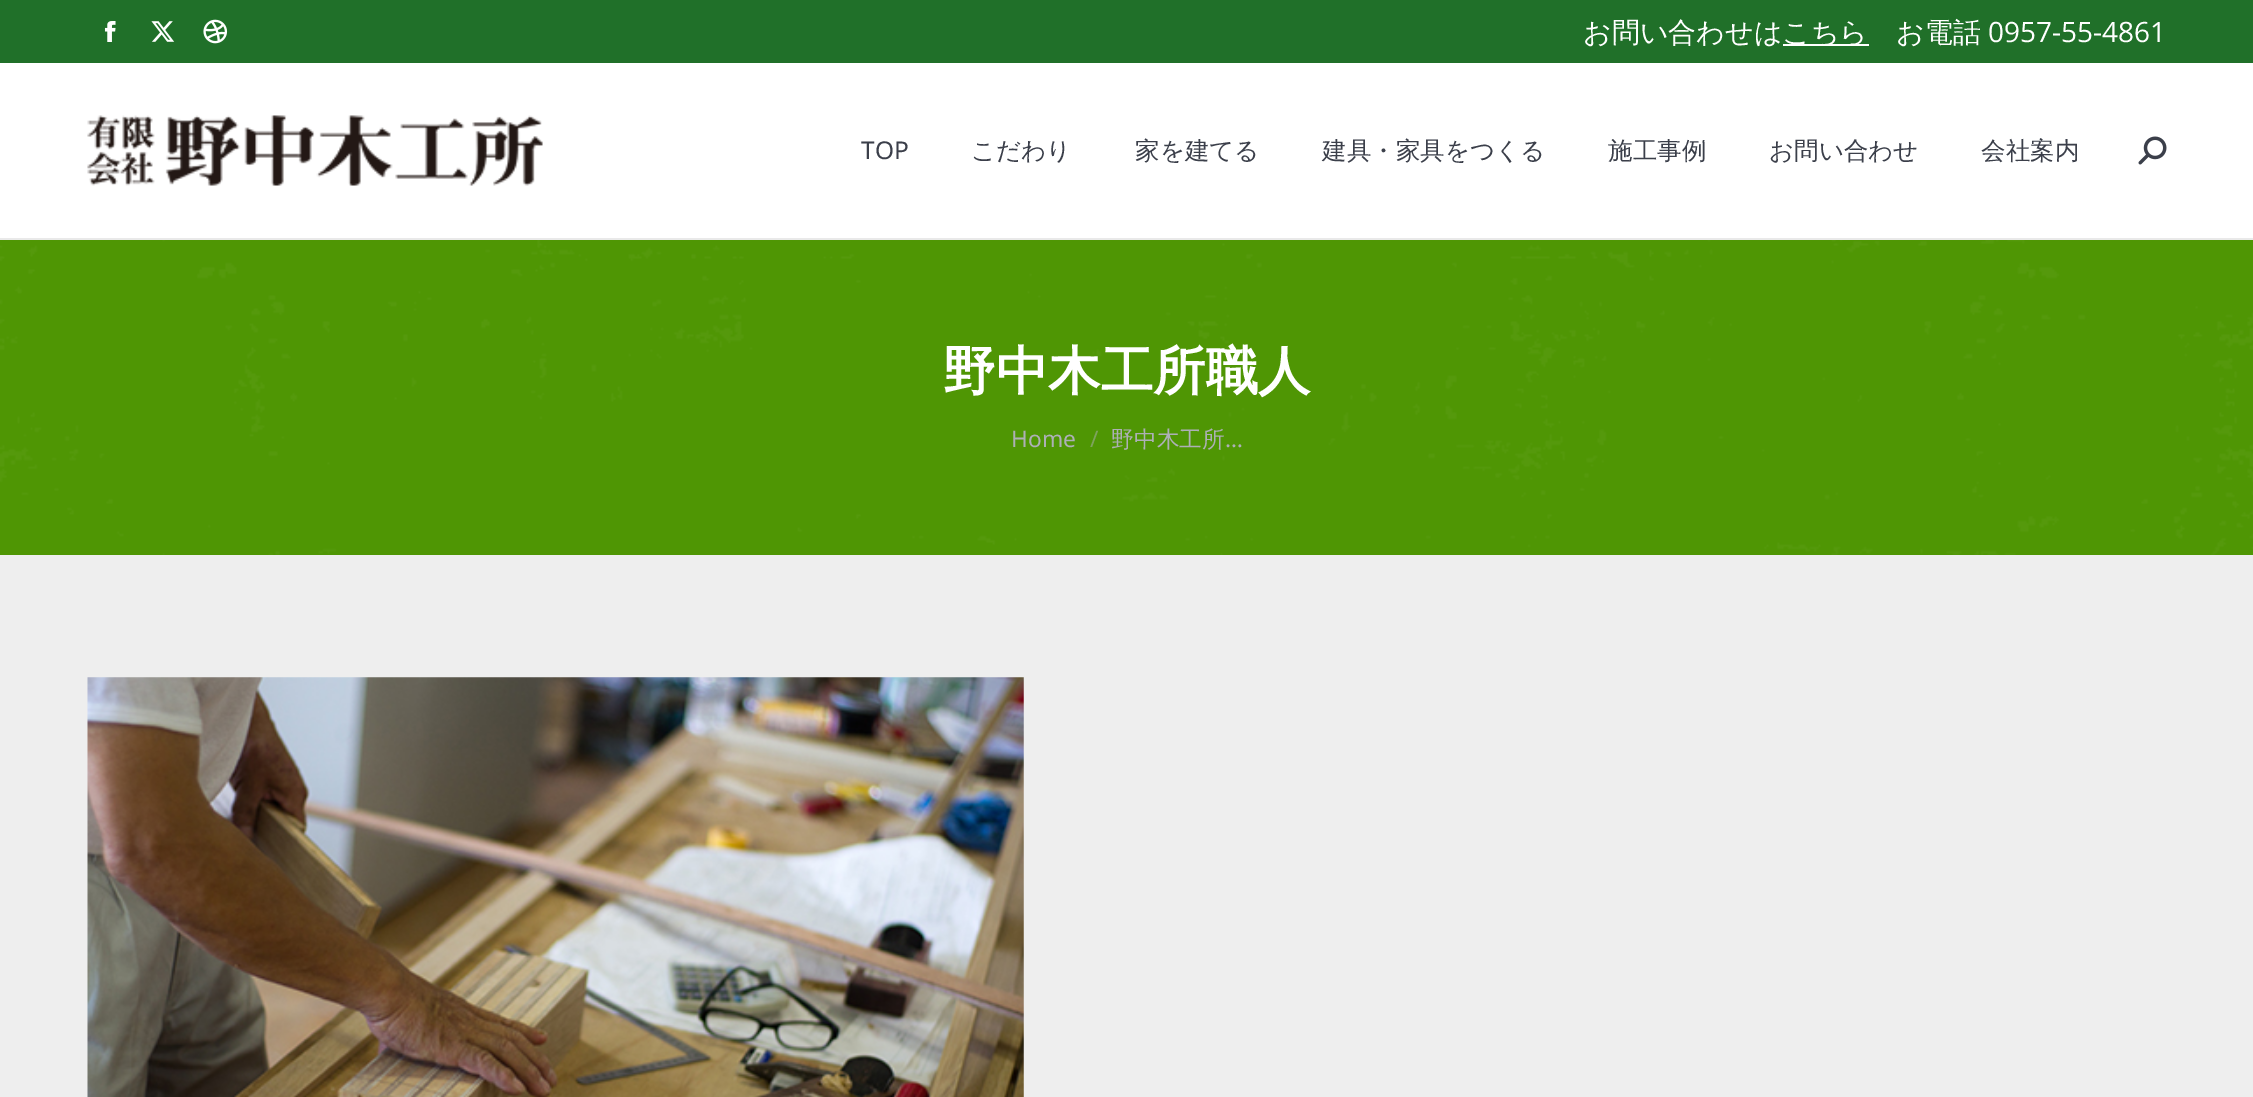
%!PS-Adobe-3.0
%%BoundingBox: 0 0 2253 1097
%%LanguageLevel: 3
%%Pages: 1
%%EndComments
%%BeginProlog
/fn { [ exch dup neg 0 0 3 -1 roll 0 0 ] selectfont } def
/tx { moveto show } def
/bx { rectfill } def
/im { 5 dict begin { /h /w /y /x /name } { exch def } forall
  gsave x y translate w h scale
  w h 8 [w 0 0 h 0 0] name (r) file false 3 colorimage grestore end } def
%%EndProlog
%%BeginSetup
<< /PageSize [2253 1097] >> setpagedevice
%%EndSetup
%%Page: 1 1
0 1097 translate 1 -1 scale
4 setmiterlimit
0.933 setgray
0 0 2253 1097 bx
1 setgray
0 63 2253 175 bx
0.914 setgray
0 238 2253 2 bx
0.125 0.439 0.161 setrgbcolor
0 0 2253 63 bx
(image0.raw) 104 21 12 21 im
(image1.raw) 151 21 24 21 im
(image2.raw) 203 19 25 25 im
/WenQuanYiZenHei-Medium 28 fn
1 setgray
(お問い合わせは) 1583 42 tx
1783 44 86 2 bx
(こちら) 1782 42 tx
(お電話) 1896 42 tx
/OpenSans-Regular 28 fn
(0957-55-4861) 1988 42 tx
(image3.raw) 87 115 456 71 im
/NotoSans-Regular 24.5 fn
0.231 0.247 0.29 setrgbcolor
(TOP) 861 159 tx
/WenQuanYiZenHei-Medium 24.5 fn
(こだわり) 971 159 tx
(家を建てる) 1135 159 tx
(建具・家具をつくる) 1322 159 tx
(施工事例) 1608 159 tx
(お問い合わせ) 1769 159 tx
(会社案内) 1981 159 tx
(image4.raw) 2138 136 29 29 im
0.31 0.588 0.016 setrgbcolor
0 240 2253 315 bx
(image5.raw) 0 240 2253 315 im
/WenQuanYiZenHei-Bold 52.5 fn
1 setgray
(野中木工所職人) 943 389 tx
/NotoSans-Regular 22.75 fn
0.678 0.69 0.714 setrgbcolor
(Home) 1011 447 tx
0.494 0.639 0.365 setrgbcolor
(/) 1090 447 tx
/WenQuanYiZenHei-Medium 22.75 fn
0.678 0.69 0.714 setrgbcolor
(野中木工所) 1111 447 tx
/NotoSans-Regular 22.75 fn
(…) 1225 447 tx
(image6.raw) 87 677 937 420 im
showpage
%%EOF
